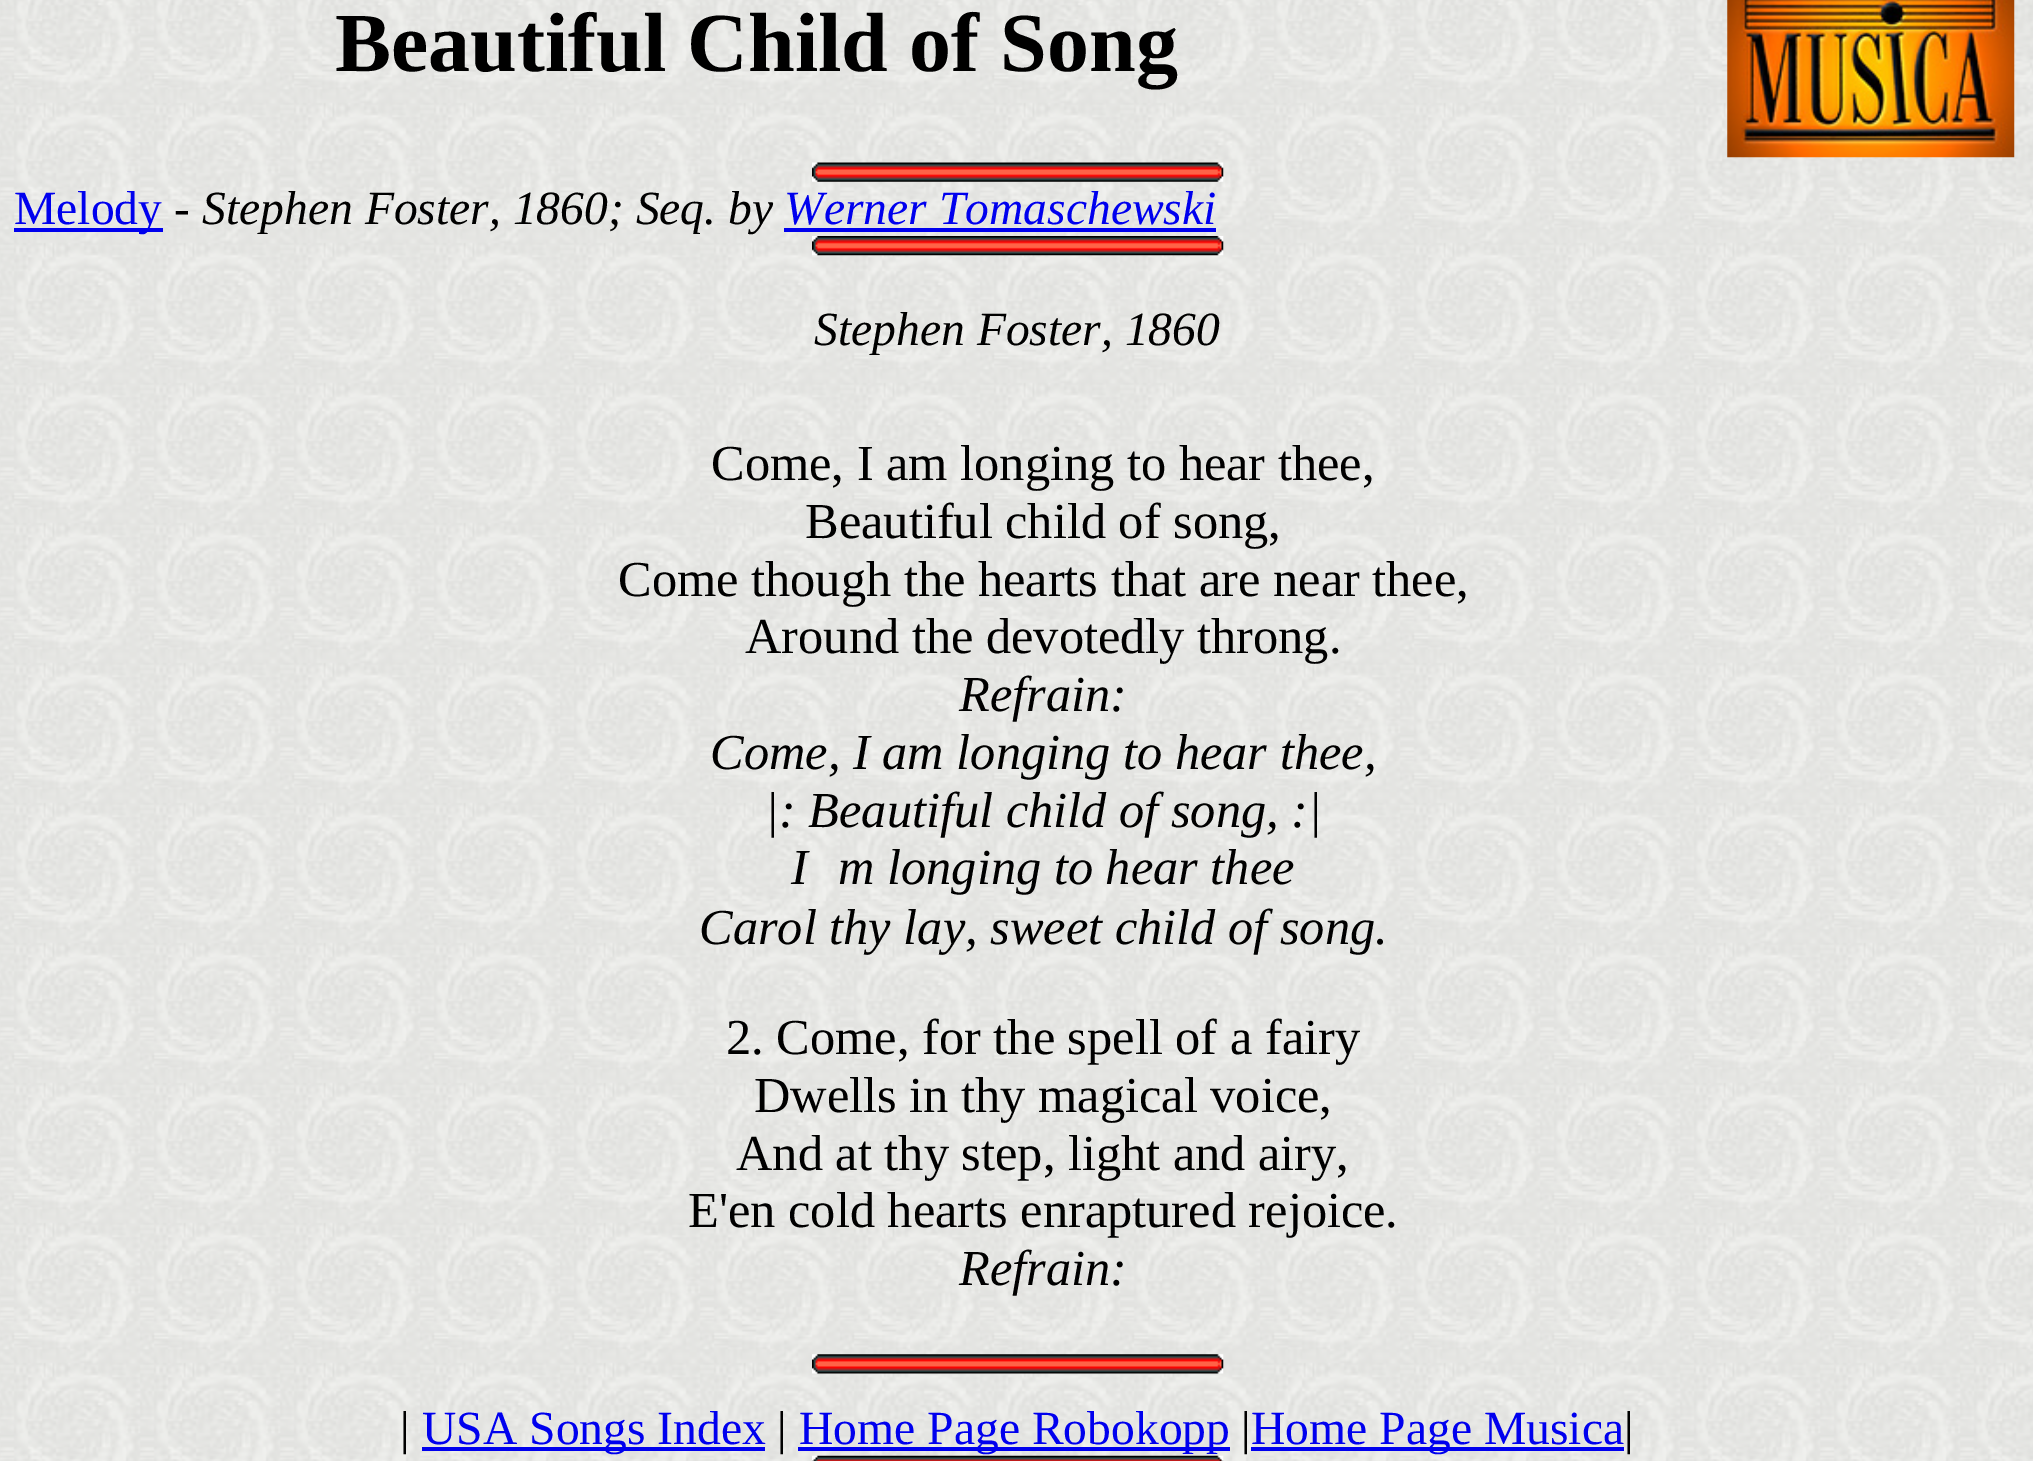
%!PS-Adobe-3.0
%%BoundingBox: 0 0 2033 1461
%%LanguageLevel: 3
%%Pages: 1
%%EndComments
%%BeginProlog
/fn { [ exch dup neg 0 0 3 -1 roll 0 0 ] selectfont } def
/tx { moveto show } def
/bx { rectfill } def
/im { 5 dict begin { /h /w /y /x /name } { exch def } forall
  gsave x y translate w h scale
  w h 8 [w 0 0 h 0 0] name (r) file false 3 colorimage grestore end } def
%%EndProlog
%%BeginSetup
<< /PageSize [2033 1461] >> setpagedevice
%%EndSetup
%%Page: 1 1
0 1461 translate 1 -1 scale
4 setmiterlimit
1 setgray
0 0 2033 1461 bx
(image0.raw) 0 0 2033 1461 im
/LiberationSerif-Bold 84 fn
0 setgray
(Beautiful Child of Song) 335 71 tx
(image1.raw) 1727 0 288 158 im
(image2.raw) 812 162 412 20 im
0 0 0.933 setrgbcolor
14 228 149 4 bx
/LiberationSerif-Regular 47.6 fn
(Melody) 14 224 tx
0 setgray
(-) 174 224 tx
/LiberationSerif-Italic 47.6 fn
(Stephen Foster, 1860; Seq. by) 202 224 tx
0 0 0.933 setrgbcolor
(Werner Tomaschewski) 784 224 tx
784 228 432 4 bx
(image3.raw) 812 236 412 20 im
0 setgray
(Stephen Foster, 1860) 814 345 tx
/LiberationSerif-Regular 50.4 fn
(Come, I am longing to hear thee,) 711 480 tx
(Beautiful child of song,) 805 538 tx
(Come though the hearts that are near thee,) 618 596 tx
(Around the devotedly throng.) 745 653 tx
/LiberationSerif-Italic 50.4 fn
(Refrain:) 959 711 tx
(Come, I am longing to hear thee,) 710 769 tx
(|: Beautiful child of song, :|) 765 827 tx
(I) 791 884 tx
(m longing to hear thee) 838 884 tx
(Carol thy lay, sweet child of song.) 699 944 tx
/LiberationSerif-Regular 50.4 fn
(2. Come, for the spell of a fairy) 726 1054 tx
(Dwells in thy magical voice,) 754 1112 tx
(And at thy step, light and airy,) 736 1170 tx
(E'en cold hearts enraptured rejoice.) 688 1227 tx
/LiberationSerif-Italic 50.4 fn
(Refrain:) 959 1285 tx
(image4.raw) 812 1354 412 20 im
/LiberationSerif-Regular 47.6 fn
(|) 400 1444 tx
0 0 0.933 setrgbcolor
422 1447 343 4 bx
(USA Songs Index) 422 1444 tx
0 setgray
(|) 777 1444 tx
0 0 0.933 setrgbcolor
798 1447 432 4 bx
(Home Page Robokopp) 799 1444 tx
0 setgray
(|) 1241 1444 tx
0 0 0.933 setrgbcolor
1251 1447 373 4 bx
(Home Page Musica) 1251 1444 tx
0 setgray
(|) 1624 1444 tx
(image5.raw) 812 1455 412 6 im
showpage
%%EOF
